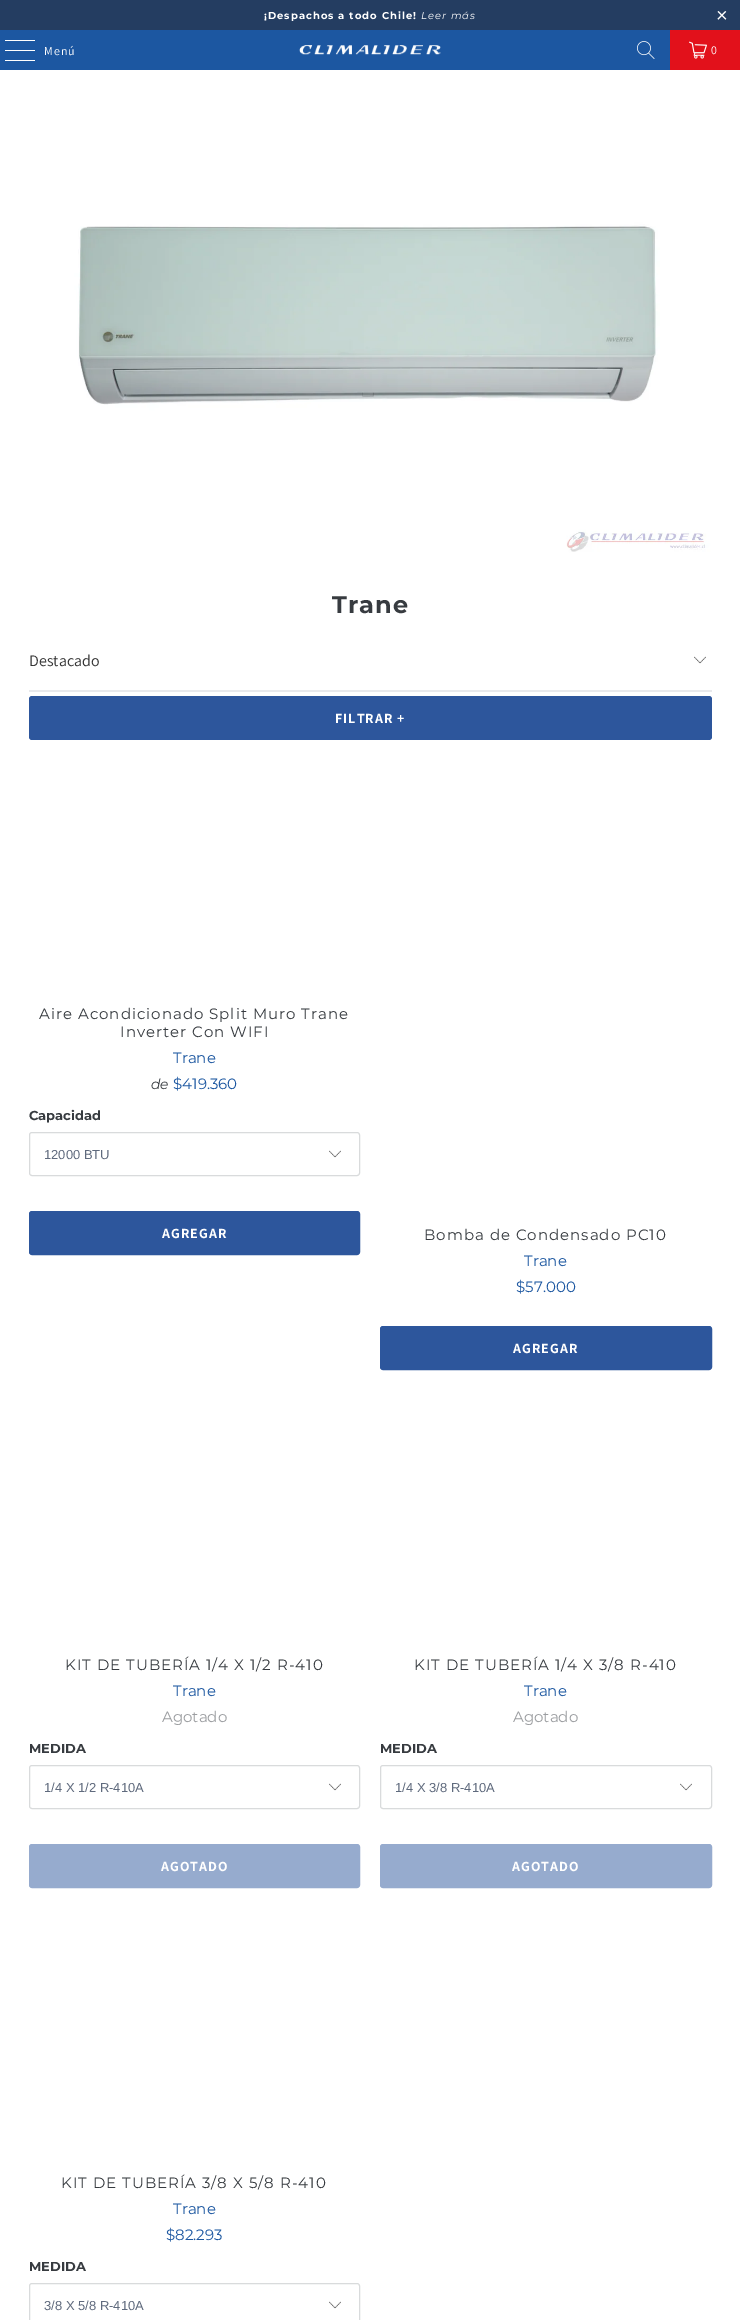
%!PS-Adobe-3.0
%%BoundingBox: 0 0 740 2320
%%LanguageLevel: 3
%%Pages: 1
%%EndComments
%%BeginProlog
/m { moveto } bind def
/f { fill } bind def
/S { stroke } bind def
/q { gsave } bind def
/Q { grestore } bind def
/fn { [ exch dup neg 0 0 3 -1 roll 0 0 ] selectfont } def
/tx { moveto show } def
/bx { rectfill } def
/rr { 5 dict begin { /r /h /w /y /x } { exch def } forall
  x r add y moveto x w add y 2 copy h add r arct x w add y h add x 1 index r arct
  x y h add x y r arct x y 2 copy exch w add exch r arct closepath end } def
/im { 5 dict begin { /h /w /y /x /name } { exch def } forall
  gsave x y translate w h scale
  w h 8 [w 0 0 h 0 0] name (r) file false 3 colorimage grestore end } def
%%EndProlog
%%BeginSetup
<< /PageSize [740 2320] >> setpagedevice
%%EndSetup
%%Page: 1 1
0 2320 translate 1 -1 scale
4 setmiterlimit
1 setgray
0 0 740 2320 bx
0.141 0.239 0.38 setrgbcolor
0 0 740 30 bx
/Montserrat-Bold 10 fn
1 setgray
264 19 m 1 0 (¡Despachos a todo Chile!) ashow
/Montserrat-Italic 10 fn
421 19 m 1 0 (Leer más) ashow
/LiberationSans-Regular 20 fn
716 22 m 1 0 (×) ashow
0.11 0.341 0.631 setrgbcolor
0 30 670 40 bx
1 setgray
5 40 30 1 0.5 rr f
5 50 30 1 0.5 rr f
5 60 30 1 0.5 rr f
/Assistant-Regular 12 fn
44 55 m 1 0 (Menú) ashow
(image0.raw) 299 45 142 10 im
(image1.raw) 637 41 18 18 im
0.886 0.067 0.106 setrgbcolor
670 30 70 40 bx
(image2.raw) 689 41 18 18 im
1 setgray
711 54 m 1 0 (0) ashow
(image3.raw) 0 70 740 493 im
/Montserrat-Bold 24 fn
0.216 0.231 0.251 setrgbcolor
332 613 m 1 0 (Trane) ashow
(image4.raw) 694 656 12 8 im
/Assistant-Regular 16 fn
0.2 setgray
(Destacado) 29 666 tx
0.91 0.914 0.925 setrgbcolor
29 690 683 2 bx
0.176 0.337 0.612 setrgbcolor
29 696 683 44 3 rr f
/Assistant-Bold 14 fn
1 setgray
335 723 m 1 0 (FILTRAR +) ashow
/Montserrat-Regular 15 fn
0.216 0.231 0.251 setrgbcolor
39 1019 m 1 0 (Aire Acondicionado Split Muro Trane) ashow
120 1037 m 1 0 (Inverter Con WIFI) ashow
0.11 0.341 0.631 setrgbcolor
(Trane) 173 1063 tx
/Montserrat-Italic 14 fn
0.216 0.231 0.251 setrgbcolor
(de) 151 1089 tx
/Montserrat-Regular 15 fn
0.11 0.341 0.631 setrgbcolor
($419.360) 173 1089 tx
/Montserrat-Bold 13 fn
0.216 0.231 0.251 setrgbcolor
(Capacidad) 29 1120 tx
(image4.raw) 329 1150 12 8 im
0.851 0.859 0.863 setrgbcolor
29.5 1132.5 330 43 2.5 rr S
/LiberationSans-Regular 13 fn
0.373 0.416 0.49 setrgbcolor
(12000 BTU) 44 1159 tx
0.176 0.337 0.612 setrgbcolor
29.5 1211.5 330 43 2.5 rr q f Q
S
/Assistant-Bold 14 fn
1 setgray
162 1238 m 1 0 (AGREGAR) ashow
/Montserrat-Regular 15 fn
0.216 0.231 0.251 setrgbcolor
424 1240 m 1 0 (Bomba de Condensado PC10) ashow
0.11 0.341 0.631 setrgbcolor
(Trane) 524 1266 tx
($57.000) 516 1292 tx
0.176 0.337 0.612 setrgbcolor
380.5 1326.5 331 43 2.5 rr q f Q
S
/Assistant-Bold 14 fn
1 setgray
513 1353 m 1 0 (AGREGAR) ashow
/Montserrat-Regular 15 fn
0.216 0.231 0.251 setrgbcolor
65 1670 m 1 0 (KIT DE TUBERÍA 1/4 X 1/2 R-410) ashow
0.11 0.341 0.631 setrgbcolor
(Trane) 173 1696 tx
0.608 0.616 0.627 setrgbcolor
(Agotado) 162 1722 tx
/Montserrat-Bold 13 fn
0.216 0.231 0.251 setrgbcolor
(MEDIDA) 29 1753 tx
(image4.raw) 329 1783 12 8 im
0.851 0.859 0.863 setrgbcolor
29.5 1765.5 330 43 2.5 rr S
/LiberationSans-Regular 13 fn
0.373 0.416 0.49 setrgbcolor
(1/4 X 1/2 R-410A) 44 1792 tx
0.588 0.671 0.808 setrgbcolor
29.5 1844.5 330 43 2.5 rr q f Q
S
/Assistant-Bold 14 fn
1 setgray
161 1871 m 1 0 (AGOTADO) ashow
/Montserrat-Regular 15 fn
0.216 0.231 0.251 setrgbcolor
414 1670 m 1 0 (KIT DE TUBERÍA 1/4 X 3/8 R-410) ashow
0.11 0.341 0.631 setrgbcolor
(Trane) 524 1696 tx
0.608 0.616 0.627 setrgbcolor
(Agotado) 513 1722 tx
/Montserrat-Bold 13 fn
0.216 0.231 0.251 setrgbcolor
(MEDIDA) 380 1753 tx
(image5.raw) 680 1783 12 8 im
0.851 0.859 0.863 setrgbcolor
380.5 1765.5 331 43 2.5 rr S
/LiberationSans-Regular 13 fn
0.373 0.416 0.49 setrgbcolor
(1/4 X 3/8 R-410A) 395 1792 tx
0.588 0.671 0.808 setrgbcolor
380.5 1844.5 331 43 2.5 rr q f Q
S
/Assistant-Bold 14 fn
1 setgray
512 1871 m 1 0 (AGOTADO) ashow
/Montserrat-Regular 15 fn
0.216 0.231 0.251 setrgbcolor
61 2188 m 1 0 (KIT DE TUBERÍA 3/8 X 5/8 R-410) ashow
0.11 0.341 0.631 setrgbcolor
(Trane) 173 2214 tx
($82.293) 166 2240 tx
/Montserrat-Bold 13 fn
0.216 0.231 0.251 setrgbcolor
(MEDIDA) 29 2271 tx
(image4.raw) 329 2301 12 8 im
0.851 0.859 0.863 setrgbcolor
29.5 2283.5 330 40 2.5 rr S
/LiberationSans-Regular 13 fn
0.373 0.416 0.49 setrgbcolor
(3/8 X 5/8 R-410A) 44 2310 tx
showpage
%%EOF
